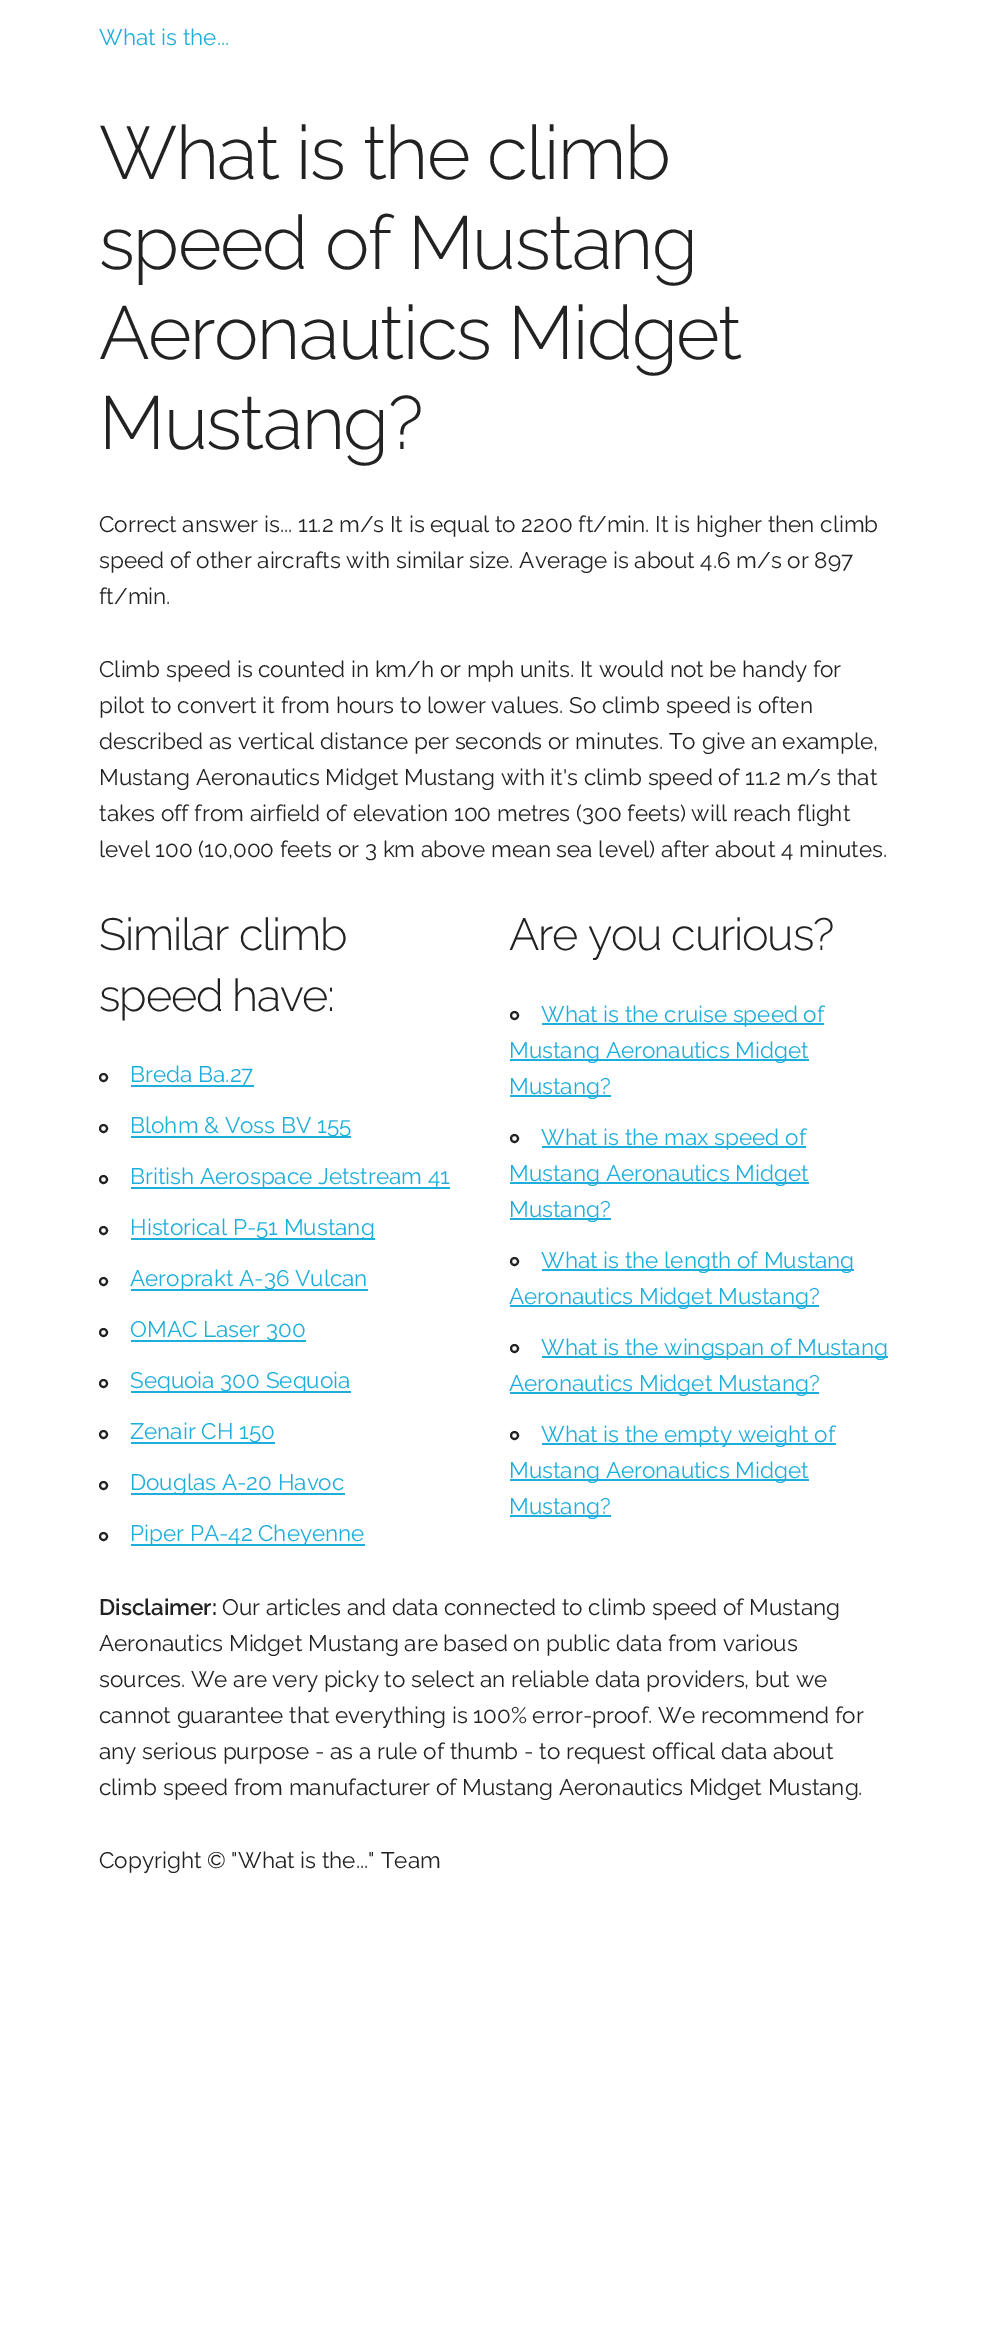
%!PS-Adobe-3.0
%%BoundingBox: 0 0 987 2351
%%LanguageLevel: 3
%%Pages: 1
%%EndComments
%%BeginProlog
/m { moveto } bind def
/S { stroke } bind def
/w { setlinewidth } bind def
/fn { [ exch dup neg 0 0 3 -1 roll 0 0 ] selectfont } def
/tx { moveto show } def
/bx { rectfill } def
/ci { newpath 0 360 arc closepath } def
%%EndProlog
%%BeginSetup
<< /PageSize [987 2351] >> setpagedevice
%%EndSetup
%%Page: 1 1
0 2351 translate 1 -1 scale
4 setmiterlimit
1 setgray
0 0 987 2351 bx
/Raleway-Regular 22.5 fn
0.118 0.682 0.859 setrgbcolor
(What is the...) 99 45 tx
/Raleway-Light 75 fn
0.133 setgray
99 179 m -1.5 0 (What is the climb) ashow
99 269 m -1.5 0 (speed of Mustang) ashow
99 359 m -1.5 0 (Aeronautics Midget) ashow
99 449 m -1.5 0 (Mustang?) ashow
/Raleway-Regular 22.5 fn
(Correct answer is... 11.2 m/s It is equal to 2200 ft/min. It is higher then climb) 99 532 tx
(speed of other aircrafts with similar size. Average is about 4.6 m/s or 897) 99 568 tx
(ft/min.) 99 604 tx
(Climb speed is counted in km/h or mph units. It would not be handy for) 99 677 tx
(pilot to convert it from hours to lower values. So climb speed is often) 99 713 tx
(described as vertical distance per seconds or minutes. To give an example,) 99 749 tx
(Mustang Aeronautics Midget Mustang with it's climb speed of 11.2 m/s that) 99 785 tx
(takes off from airfield of elevation 100 metres \(300 feets\) will reach flight) 99 821 tx
(level 100 \(10,000 feets or 3 km above mean sea level\) after about 4 minutes.) 99 857 tx
/Raleway-Light 45 fn
99 950 m -1.25 0 (Similar climb) ashow
99 1011 m -1.25 0 (speed have:) ashow
2 w
103.5 1077.5 3.5 ci S
/Raleway-Regular 22.5 fn
0.118 0.682 0.859 setrgbcolor
(Breda Ba.27) 130 1082 tx
131 1085 123 2 bx
0.133 setgray
103.5 1128.5 3.5 ci S
0.118 0.682 0.859 setrgbcolor
131 1136 220 2 bx
(Blohm & Voss BV 155) 130 1133 tx
0.133 setgray
103.5 1179.5 3.5 ci S
0.118 0.682 0.859 setrgbcolor
131 1187 319 2 bx
(British Aerospace Jetstream 41) 130 1184 tx
0.133 setgray
103.5 1230.5 3.5 ci S
0.118 0.682 0.859 setrgbcolor
131 1238 244 2 bx
(Historical P-51 Mustang) 130 1235 tx
0.133 setgray
103.5 1281.5 3.5 ci S
0.118 0.682 0.859 setrgbcolor
131 1289 237 2 bx
(Aeroprakt A-36 Vulcan) 130 1286 tx
0.133 setgray
103.5 1332.5 3.5 ci S
0.118 0.682 0.859 setrgbcolor
131 1340 175 2 bx
(OMAC Laser 300) 130 1337 tx
0.133 setgray
103.5 1383.5 3.5 ci S
0.118 0.682 0.859 setrgbcolor
131 1391 220 2 bx
(Sequoia 300 Sequoia) 130 1388 tx
0.133 setgray
103.5 1434.5 3.5 ci S
0.118 0.682 0.859 setrgbcolor
131 1442 144 2 bx
(Zenair CH 150) 130 1439 tx
0.133 setgray
103.5 1485.5 3.5 ci S
0.118 0.682 0.859 setrgbcolor
131 1493 214 2 bx
(Douglas A-20 Havoc) 130 1490 tx
0.133 setgray
103.5 1536.5 3.5 ci S
0.118 0.682 0.859 setrgbcolor
131 1544 234 2 bx
(Piper PA-42 Cheyenne) 130 1541 tx
/Raleway-Light 45 fn
0.133 setgray
509 950 m -1.25 0 (Are you curious?) ashow
514.5 1015.5 3.5 ci S
0.118 0.682 0.859 setrgbcolor
542 1023 282 2 bx
/Raleway-Regular 22.5 fn
(What is the cruise speed of) 541 1022 tx
510 1059 299 2 bx
(Mustang Aeronautics Midget) 509 1058 tx
510 1095 101 2 bx
(Mustang?) 509 1094 tx
0.133 setgray
514.5 1138.5 3.5 ci S
0.118 0.682 0.859 setrgbcolor
542 1146 264 2 bx
(What is the max speed of) 541 1145 tx
510 1182 299 2 bx
(Mustang Aeronautics Midget) 509 1181 tx
510 1218 101 2 bx
(Mustang?) 509 1217 tx
0.133 setgray
514.5 1261.5 3.5 ci S
0.118 0.682 0.859 setrgbcolor
542 1269 312 2 bx
(What is the length of Mustang) 541 1268 tx
510 1305 309 2 bx
(Aeronautics Midget Mustang?) 509 1304 tx
0.133 setgray
514.5 1348.5 3.5 ci S
0.118 0.682 0.859 setrgbcolor
542 1356 346 2 bx
(What is the wingspan of Mustang) 541 1355 tx
510 1392 309 2 bx
(Aeronautics Midget Mustang?) 509 1391 tx
0.133 setgray
514.5 1435.5 3.5 ci S
0.118 0.682 0.859 setrgbcolor
542 1443 294 2 bx
(What is the empty weight of) 541 1442 tx
510 1479 299 2 bx
(Mustang Aeronautics Midget) 509 1478 tx
510 1515 101 2 bx
(Mustang?) 509 1514 tx
/Raleway-SemiBold 22.5 fn
0.133 setgray
(Disclaimer:) 99 1615 tx
/Raleway-Regular 22.5 fn
(Our articles and data connected to climb speed of Mustang) 222 1615 tx
(Aeronautics Midget Mustang are based on public data from various) 99 1651 tx
(sources. We are very picky to select an reliable data providers, but we) 99 1687 tx
(cannot guarantee that everything is 100% error-proof. We recommend for) 99 1723 tx
(any serious purpose - as a rule of thumb - to request offical data about) 99 1759 tx
(climb speed from manufacturer of Mustang Aeronautics Midget Mustang.) 99 1795 tx
(Copyright © "What is the..." Team) 99 1868 tx
showpage
%%EOF
